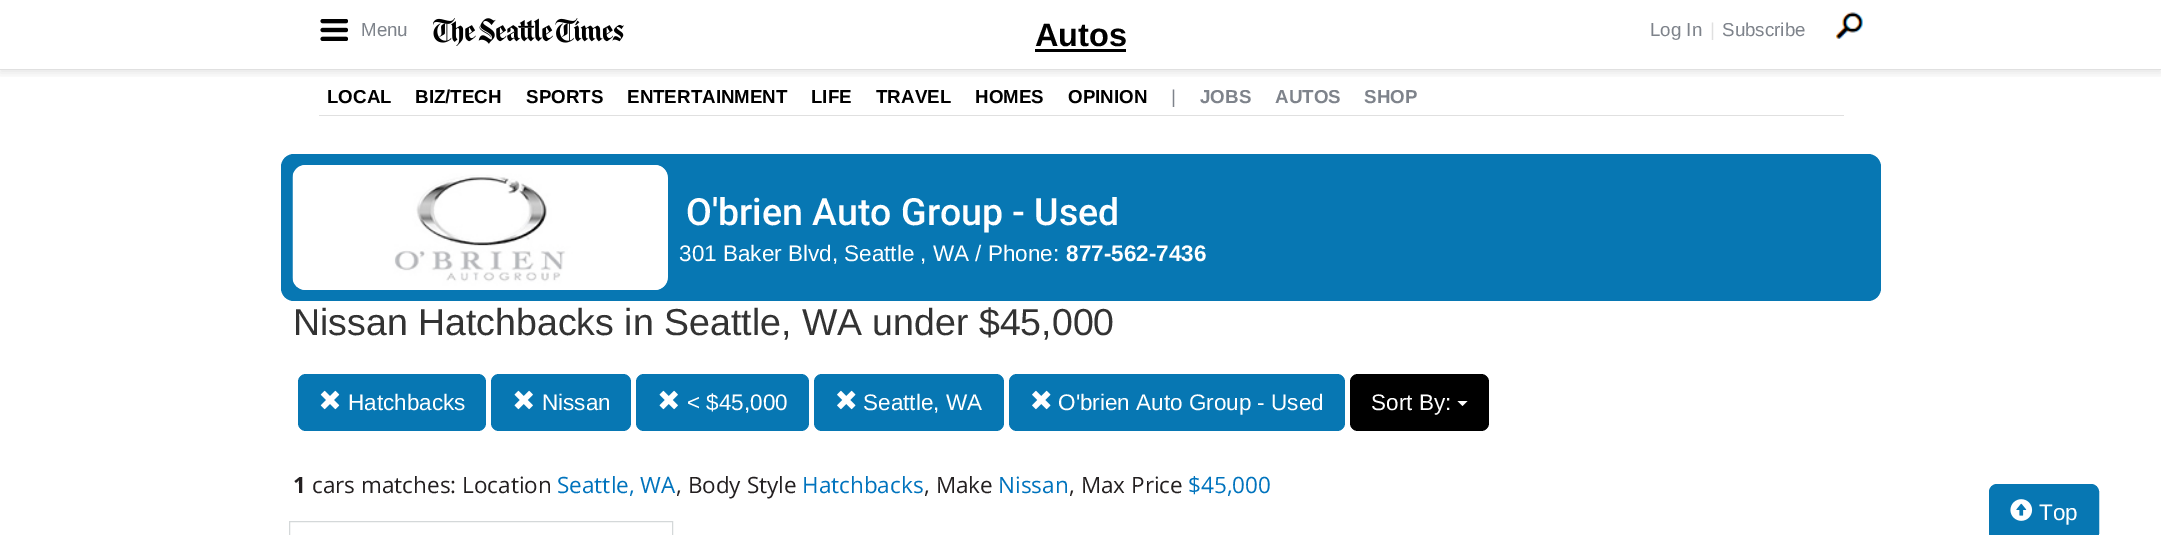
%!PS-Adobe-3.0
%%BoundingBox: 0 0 2161 535
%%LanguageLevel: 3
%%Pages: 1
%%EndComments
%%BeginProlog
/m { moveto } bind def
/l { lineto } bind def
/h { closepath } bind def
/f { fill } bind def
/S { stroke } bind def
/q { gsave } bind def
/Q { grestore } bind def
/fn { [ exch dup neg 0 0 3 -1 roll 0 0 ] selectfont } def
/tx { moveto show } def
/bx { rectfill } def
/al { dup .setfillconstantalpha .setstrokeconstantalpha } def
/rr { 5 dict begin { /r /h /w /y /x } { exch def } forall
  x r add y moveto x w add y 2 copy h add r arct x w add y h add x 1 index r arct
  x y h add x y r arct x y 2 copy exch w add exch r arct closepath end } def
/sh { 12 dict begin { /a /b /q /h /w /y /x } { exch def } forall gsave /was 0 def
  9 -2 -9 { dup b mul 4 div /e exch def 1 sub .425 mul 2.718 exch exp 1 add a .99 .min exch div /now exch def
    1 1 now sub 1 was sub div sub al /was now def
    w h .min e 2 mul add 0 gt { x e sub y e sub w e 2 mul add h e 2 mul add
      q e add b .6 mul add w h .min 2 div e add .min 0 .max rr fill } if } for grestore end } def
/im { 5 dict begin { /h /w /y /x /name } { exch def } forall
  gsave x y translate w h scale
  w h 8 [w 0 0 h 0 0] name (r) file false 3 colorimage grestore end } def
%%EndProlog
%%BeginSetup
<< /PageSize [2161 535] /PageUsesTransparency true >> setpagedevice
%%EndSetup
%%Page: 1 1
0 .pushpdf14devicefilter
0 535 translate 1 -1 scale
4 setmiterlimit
1 setgray
0 0 2161 535 bx
q
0 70 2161 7 rectclip
0 setgray
0 3 2161 70 0 4.5 0.1 sh
Q
0.878 setgray
0 69 2161 1 bx
(image0.raw) 320 19 28 22 im
/LiberationSans-Regular 18.75 fn
0.494 0.514 0.545 setrgbcolor
(Menu) 361 36 tx
(image1.raw) 433 18 191 28 im
(Log In) 1650 36 tx
0.878 setgray
(|) 1710 36 tx
0.494 0.514 0.545 setrgbcolor
(Subscribe) 1722 36 tx
(image2.raw) 1836 12 27 27 im
/LiberationSans-Bold 32.5 fn
0 setgray
(Autos) 1035 46 tx
1035 49 91 3 bx
0.878 setgray
319 115 1525 1 bx
/LiberationSans-Bold 18.75 fn
0 setgray
(LOCAL) 327 103 tx
(BIZ/TECH) 415 103 tx
(SPORTS) 526 103 tx
(ENTERTAINMENT) 627 103 tx
(LIFE) 811 103 tx
(TRAVEL) 876 103 tx
(HOMES) 975 103 tx
(OPINION) 1068 103 tx
/LiberationSans-Regular 18.75 fn
0.494 0.514 0.545 setrgbcolor
(|) 1171 103 tx
/LiberationSans-Bold 18.75 fn
(JOBS) 1200 103 tx
(AUTOS) 1275 103 tx
(SHOP) 1364 103 tx
0.027 0.467 0.702 setrgbcolor
281 154 1600 147 13 rr f
1 setgray
293 165 375 125 13 rr f
(image3.raw) 292 165 376 125 im
/Roboto-Medium 37.5 fn
(O'brien Auto Group - Used) 686 225 tx
/LiberationSans-Regular 22.5 fn
(301 Baker Blvd, Seattle , WA / Phone:) 679 261 tx
/LiberationSans-Bold 22.5 fn
(877-562-7436) 1066 261 tx
/LiberationSans-Regular 37.5 fn
0.2 setgray
(Nissan Hatchbacks in Seattle, WA under $45,000) 293 335 tx
0.027 0.467 0.702 setrgbcolor
298 374 188 57 8 rr f
(image4.raw) 320 390 20 20 im
/LiberationSans-Regular 22.5 fn
1 setgray
(Hatchbacks) 348 410 tx
0.027 0.467 0.702 setrgbcolor
491 374 140 57 8 rr f
(image5.raw) 514 390 19 20 im
1 setgray
(Nissan) 542 410 tx
0.027 0.467 0.702 setrgbcolor
636 374 173 57 8 rr f
(image5.raw) 659 390 19 20 im
1 setgray
(< $45,000) 687 410 tx
0.027 0.467 0.702 setrgbcolor
814 374 190 57 8 rr f
(image6.raw) 837 390 19 20 im
1 setgray
(Seattle, WA) 863 410 tx
0.027 0.467 0.702 setrgbcolor
1009 374 336 57 8 rr f
(image6.raw) 1032 390 19 20 im
1 setgray
(O'brien Auto Group - Used) 1058 410 tx
0 setgray
1350 374 139 57 8 rr f
1 setgray
(Sort By:) 1371 410 tx
1457.5 401 m 1467.5 401 l 1462.5 406 l h f
/OpenSans-Bold 22.5 fn
0.137 0.122 0.125 setrgbcolor
(1) 293 493 tx
/OpenSans-Regular 22.5 fn
(cars matches: Location) 312 493 tx
0 0.451 0.741 setrgbcolor
(Seattle, WA) 557 493 tx
0.137 0.122 0.125 setrgbcolor
(, Body Style) 676 493 tx
0 0.451 0.741 setrgbcolor
(Hatchbacks) 802 493 tx
0.137 0.122 0.125 setrgbcolor
(, Make) 924 493 tx
0 0.451 0.741 setrgbcolor
(Nissan) 998 493 tx
0.137 0.122 0.125 setrgbcolor
(, Max Price) 1069 493 tx
0 0.451 0.741 setrgbcolor
($45,000) 1188 493 tx
0.831 0.847 0.851 setrgbcolor
289.5 521.5 383 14 rectstroke
0.027 0.467 0.702 setrgbcolor
1989.5 484.5 109 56 7.5 rr q f Q
S
(image7.raw) 2010 499 23 22 im
/LiberationSans-Regular 22.5 fn
1 setgray
(Top) 2039 520 tx
.poppdf14devicefilter showpage
%%EOF
